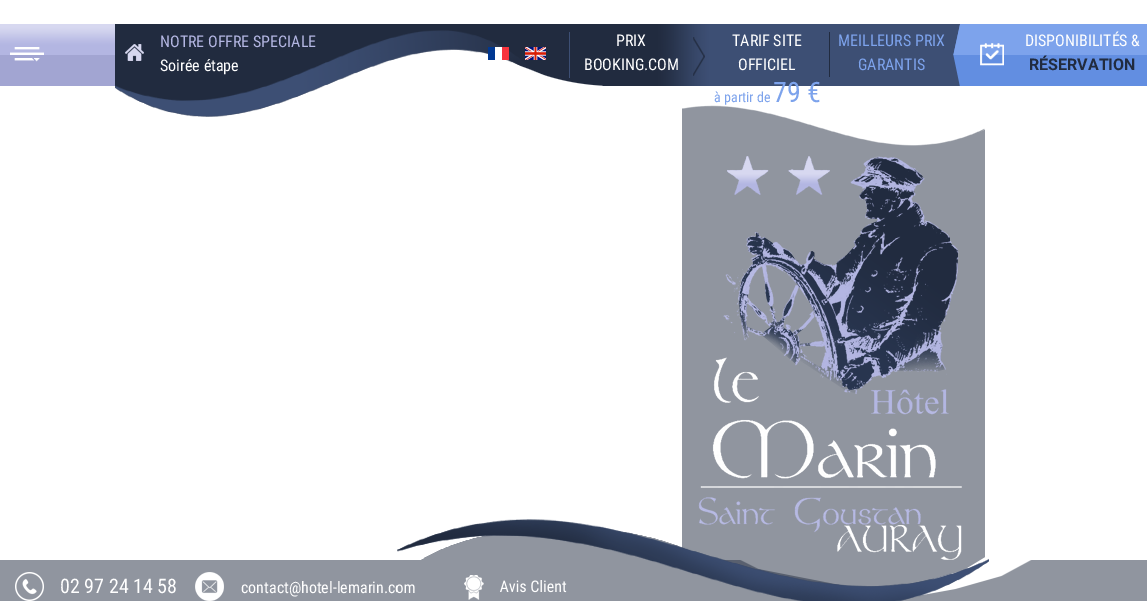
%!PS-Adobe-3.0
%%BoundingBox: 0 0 1147 601
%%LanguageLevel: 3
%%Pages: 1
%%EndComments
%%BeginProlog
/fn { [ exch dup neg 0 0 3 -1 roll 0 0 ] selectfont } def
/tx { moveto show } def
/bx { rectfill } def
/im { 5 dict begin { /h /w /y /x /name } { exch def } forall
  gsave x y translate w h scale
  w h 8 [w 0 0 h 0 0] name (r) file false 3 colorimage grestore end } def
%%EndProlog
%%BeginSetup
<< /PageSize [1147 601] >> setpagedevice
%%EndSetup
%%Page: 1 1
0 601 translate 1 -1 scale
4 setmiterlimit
1 setgray
0 0 1147 601 bx
(image0.raw) 0 24 115 62 im
(image1.raw) 10 47 34 15 im
(image2.raw) 115 24 845 93 im
(image3.raw) 953 24 194 62 im
/RobotoCondensed-Regular 16 fn
(DISPONIBILITÉS &) 1025 46 tx
/Roboto-Bold 16 fn
0.129 0.169 0.247 setrgbcolor
(RÉSERVATION) 1029 70 tx
(image4.raw) 125 44 19 17 im
/RobotoCondensed-Regular 16 fn
0.702 0.714 0.886 setrgbcolor
(NOTRE OFFRE SPECIALE) 160 47 tx
1 setgray
(Soirée étape) 160 71 tx
(image5.raw) 488 47 21 13 im
(image6.raw) 525 47 21 13 im
0.239 0.31 0.455 setrgbcolor
569 32 1 46 bx
1 setgray
(PRIX) 616 46 tx
(BOOKING.COM) 584 70 tx
(image7.raw) 693 37 12 39 im
(TARIF SITE) 732 46 tx
(OFFICIEL) 738 70 tx
/RobotoCondensed-Regular 14 fn
0.49 0.639 0.925 setrgbcolor
(à partir de) 714 102 tx
/RobotoCondensed-Regular 28 fn
(79 €) 773 102 tx
0.129 0.169 0.247 setrgbcolor
829 32 1 45 bx
/RobotoCondensed-Regular 16 fn
0.49 0.639 0.925 setrgbcolor
(MEILLEURS PRIX) 838 46 tx
(GARANTIS) 858 70 tx
(image8.raw) 0 530 1147 71 im
(image9.raw) 15 572 29 29 im
/RobotoCondensed-Regular 20 fn
1 setgray
(02 97 24 14 58) 60 593 tx
(image10.raw) 195 572 29 29 im
/RobotoCondensed-Regular 16 fn
(contact@hotel-lemarin.com) 241 593 tx
(image11.raw) 464 575 20 25 im
(Avis Client) 500 592 tx
(image12.raw) 682 105 303 482 im
(image13.raw) 397 519 592 82 im
showpage
%%EOF
